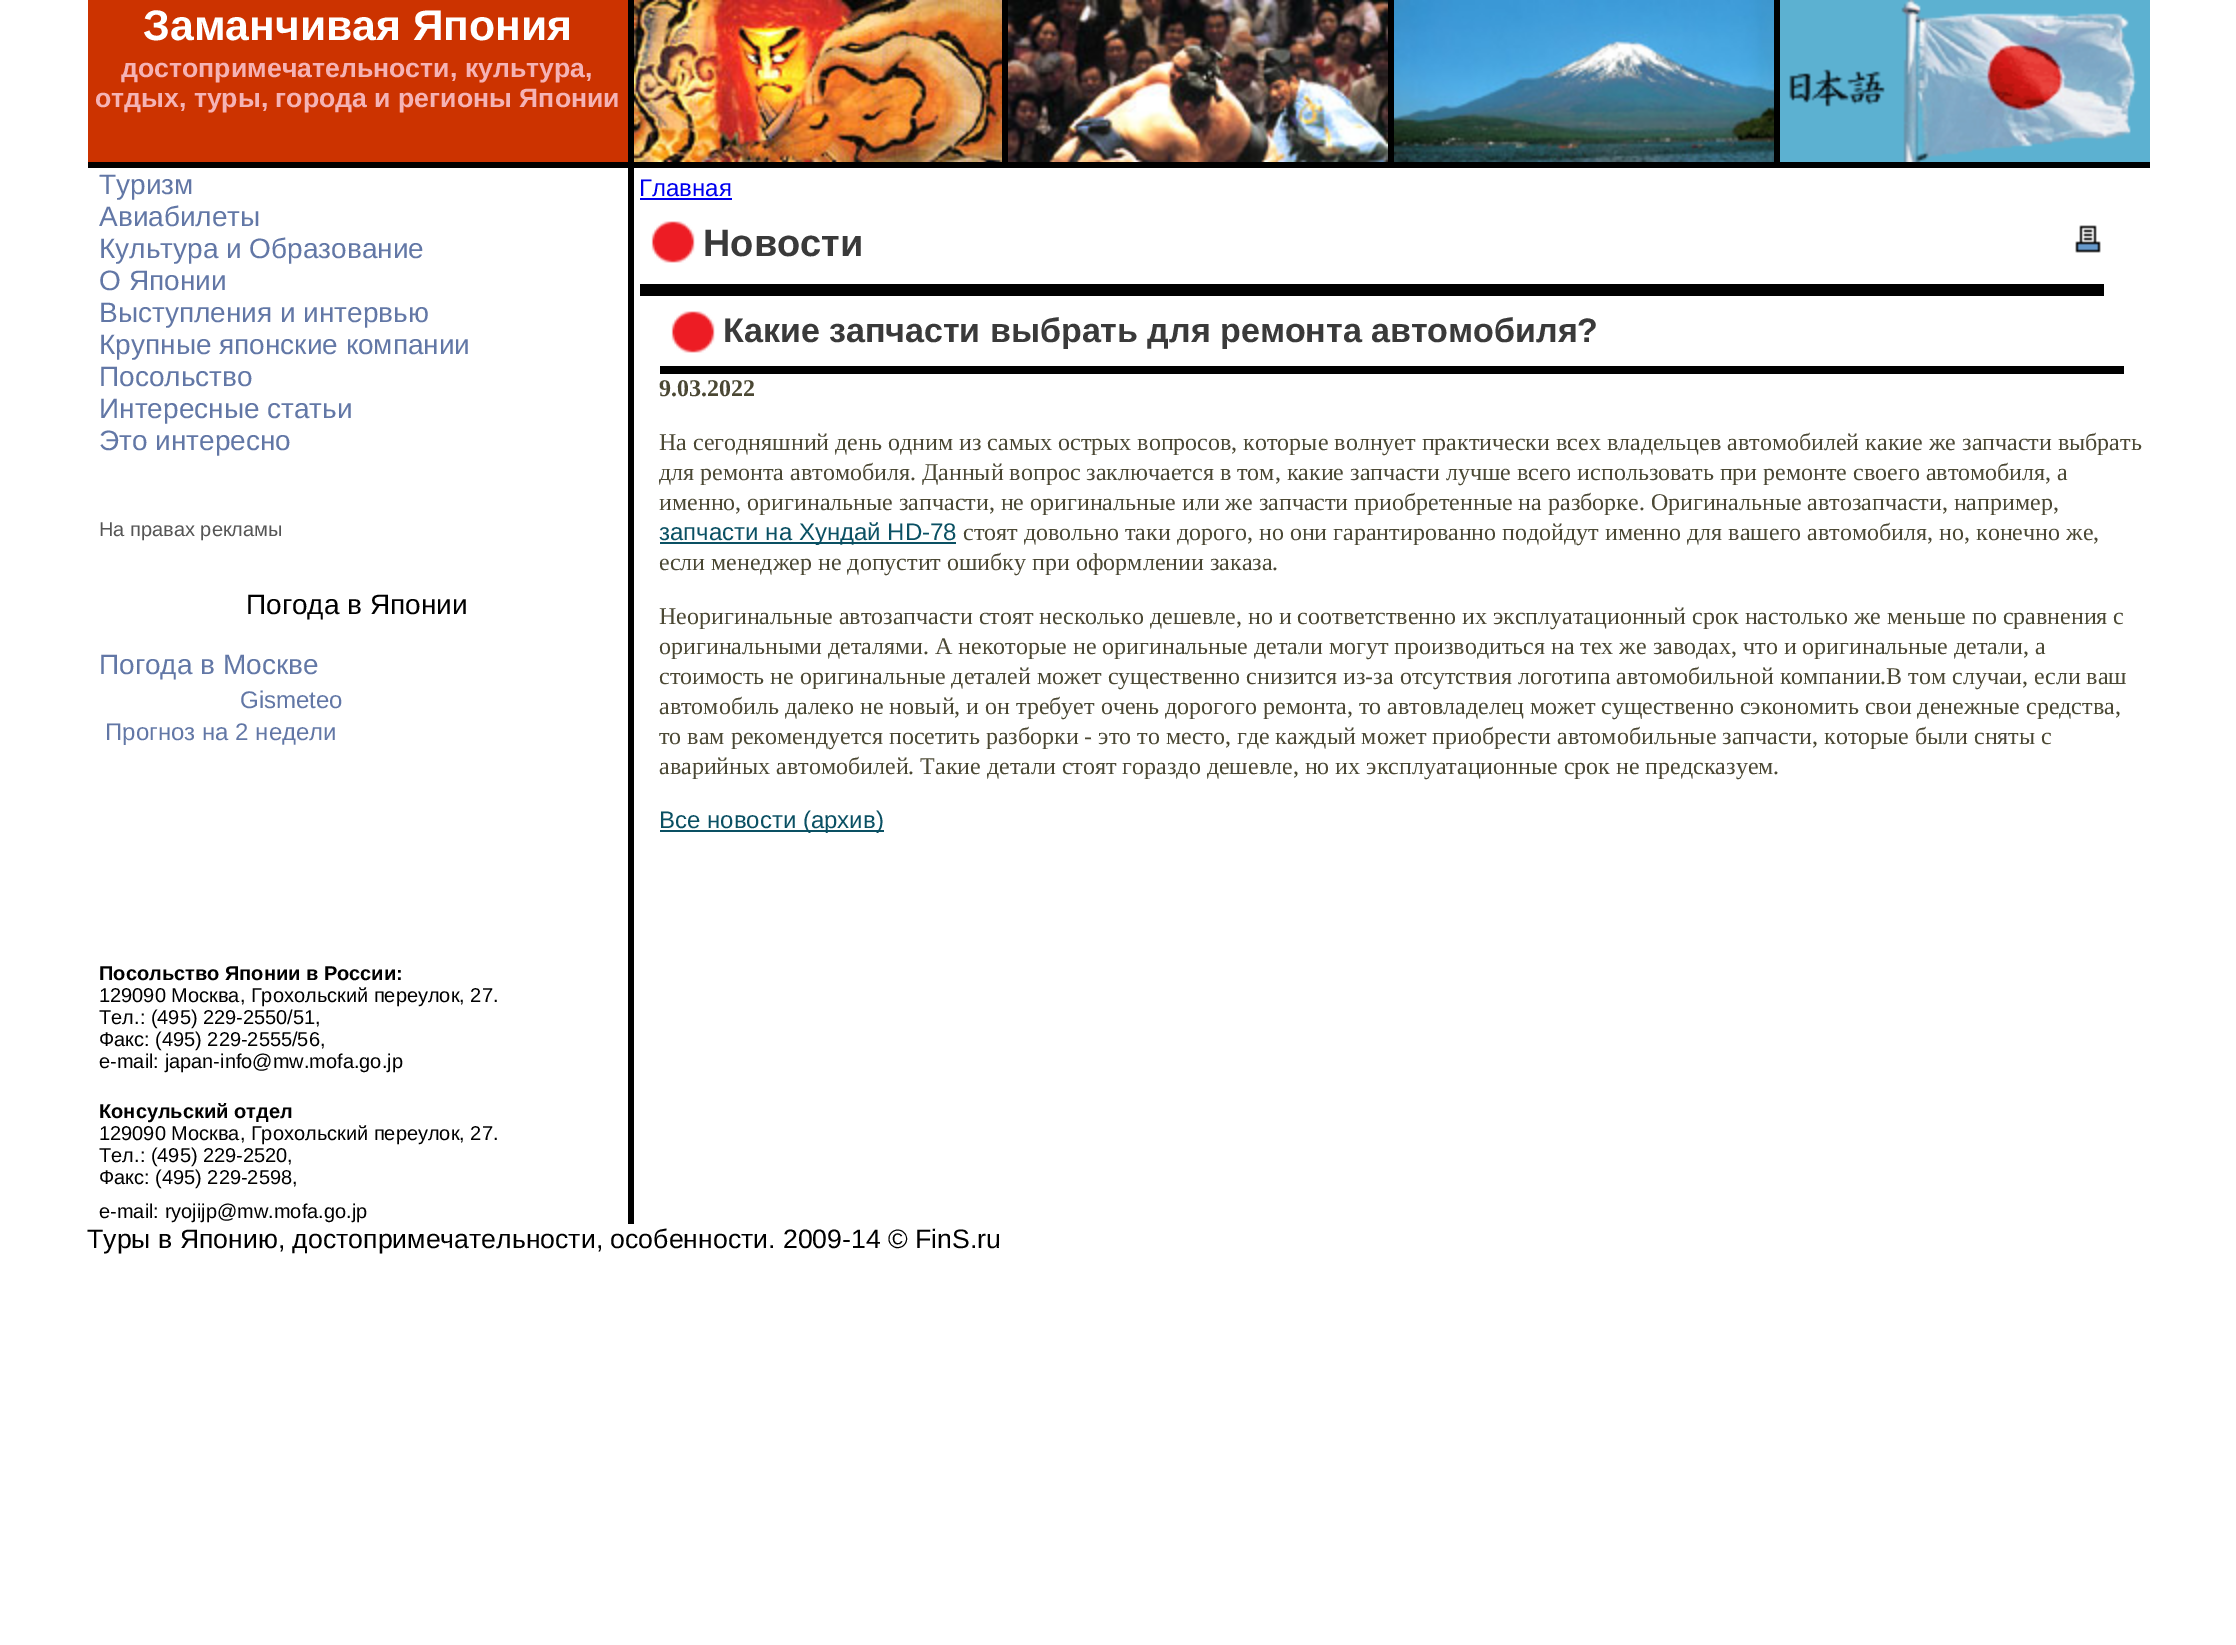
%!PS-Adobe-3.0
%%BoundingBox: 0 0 2236 1645
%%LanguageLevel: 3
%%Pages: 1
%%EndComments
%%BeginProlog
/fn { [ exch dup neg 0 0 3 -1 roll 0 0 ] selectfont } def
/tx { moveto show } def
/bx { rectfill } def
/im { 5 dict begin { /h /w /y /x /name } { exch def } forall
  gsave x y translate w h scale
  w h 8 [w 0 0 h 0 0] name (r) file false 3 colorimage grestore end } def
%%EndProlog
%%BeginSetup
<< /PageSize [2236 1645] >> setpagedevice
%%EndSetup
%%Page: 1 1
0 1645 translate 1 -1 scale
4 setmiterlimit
1 setgray
0 0 2236 1645 bx
0 setgray
88 0 2062 168 bx
0.8 0.2 0 setrgbcolor
88 0 540 162 bx
/LiberationSans-Bold 42.75 fn
1 setgray
(Заманчивая Япония) 143 40 tx
/LiberationSans-Bold 26.65 fn
0.961 0.702 0.71 setrgbcolor
(достопримечательности, культура,) 121 77 tx
(отдых, туры, города и регионы Японии) 95 107 tx
(image0.raw) 634 0 368 162 im
(image1.raw) 1008 0 380 162 im
(image2.raw) 1394 0 380 162 im
0.361 0.694 0.82 setrgbcolor
1780 0 370 162 bx
(image3.raw) 1789 0 348 162 im
/LiberationSans-Regular 28 fn
0.384 0.467 0.651 setrgbcolor
(Туризм) 99 194 tx
(Авиабилеты) 99 226 tx
(Культура и Образование) 99 258 tx
(О Японии) 99 290 tx
(Выступления и интервью) 99 322 tx
(Крупные японские компании) 99 354 tx
(Посольство) 99 386 tx
(Интересные статьи) 99 418 tx
(Это интересно) 99 450 tx
/LiberationSans-Regular 20 fn
0.333 setgray
(На правах рекламы) 99 536 tx
/LiberationSans-Regular 28 fn
0 setgray
(Погода в Японии) 246 614 tx
0.384 0.467 0.651 setrgbcolor
(Погода в Москве) 99 674 tx
/LiberationSans-Regular 24 fn
(Gismeteo) 240 708 tx
(Прогноз на 2 недели) 105 740 tx
/LiberationSans-Bold 20 fn
0 setgray
(Посольство Японии в России:) 99 980 tx
/LiberationSans-Regular 20 fn
(129090 Москва, Грохольский переулок, 27.) 99 1002 tx
(Тел.: \(495\) 229-2550/51,) 99 1024 tx
(Факс: \(495\) 229-2555/56,) 99 1046 tx
(e-mail: japan-info@mw.mofa.go.jp) 99 1068 tx
/LiberationSans-Bold 20 fn
(Консульский отдел) 99 1118 tx
/LiberationSans-Regular 20 fn
(129090 Москва, Грохольский переулок, 27.) 99 1140 tx
(Тел.: \(495\) 229-2520,) 99 1162 tx
(Факс: \(495\) 229-2598,) 99 1184 tx
(e-mail: ryojijp@mw.mofa.go.jp) 99 1218 tx
628 168 6 1056 bx
/LiberationSans-Regular 24 fn
0 0 0.933 setrgbcolor
(Главная) 639 196 tx
640 198 92 2 bx
(image4.raw) 651 221 44 42 im
0 setgray
640 284 1464 12 bx
/LiberationSans-Bold 38 fn
0.227 setgray
(Новости) 703 256 tx
(image5.raw) 2075 225 26 28 im
(image4.raw) 671 311 44 42 im
0 setgray
660 366 1464 8 bx
/LiberationSans-Bold 34 fn
0.227 setgray
(Какие запчасти выбрать для ремонта автомобиля?) 723 342 tx
/LiberationSerif-Bold 24 fn
0.294 0.282 0.204 setrgbcolor
(9.03.2022) 659 396 tx
/LiberationSerif-Regular 24 fn
(На сегодняшний день одним из самых острых вопросов, которые волнует практически всех владельцев автомобилей какие же запчасти выбрать) 659 450 tx
(для ремонта автомобиля. Данный вопрос заключается в том, какие запчасти лучше всего использовать при ремонте своего автомобиля, а) 659 480 tx
(именно, оригинальные запчасти, не оригинальные или же запчасти приобретенные на разборке. Оригинальные автозапчасти, например,) 659 510 tx
0.039 0.314 0.388 setrgbcolor
660 542 296 2 bx
/LiberationSans-Regular 24 fn
(запчасти на Хундай HD-78) 659 540 tx
/LiberationSerif-Regular 24 fn
0.294 0.282 0.204 setrgbcolor
(стоят довольно таки дорого, но они гарантированно подойдут именно для вашего автомобиля, но, конечно же,) 963 540 tx
(если менеджер не допустит ошибку при оформлении заказа.) 659 570 tx
(Неоригинальные автозапчасти стоят несколько дешевле, но и соответственно их эксплуатационный срок настолько же меньше по сравнения с) 659 624 tx
(оригинальными деталями. А некоторые не оригинальные детали могут производиться на тех же заводах, что и оригинальные детали, а) 659 654 tx
(стоимость не оригинальные деталей может существенно снизится из-за отсутствия логотипа автомобильной компании.В том случаи, если ваш) 659 684 tx
(автомобиль далеко не новый, и он требует очень дорогого ремонта, то автовладелец может существенно сэкономить свои денежные средства,) 659 714 tx
(то вам рекомендуется посетить разборки - это то место, где каждый может приобрести автомобильные запчасти, которые были сняты с) 659 744 tx
(аварийных автомобилей. Такие детали стоят гораздо дешевле, но их эксплуатационные срок не предсказуем.) 659 774 tx
0.039 0.314 0.388 setrgbcolor
660 830 224 2 bx
/LiberationSans-Regular 24 fn
(Все новости \(архив\)) 659 828 tx
/LiberationSans-Regular 26.65 fn
0 setgray
(Туры в Японию, достопримечательности, особенности. 2009-14 © FinS.ru) 87 1248 tx
showpage
%%EOF
